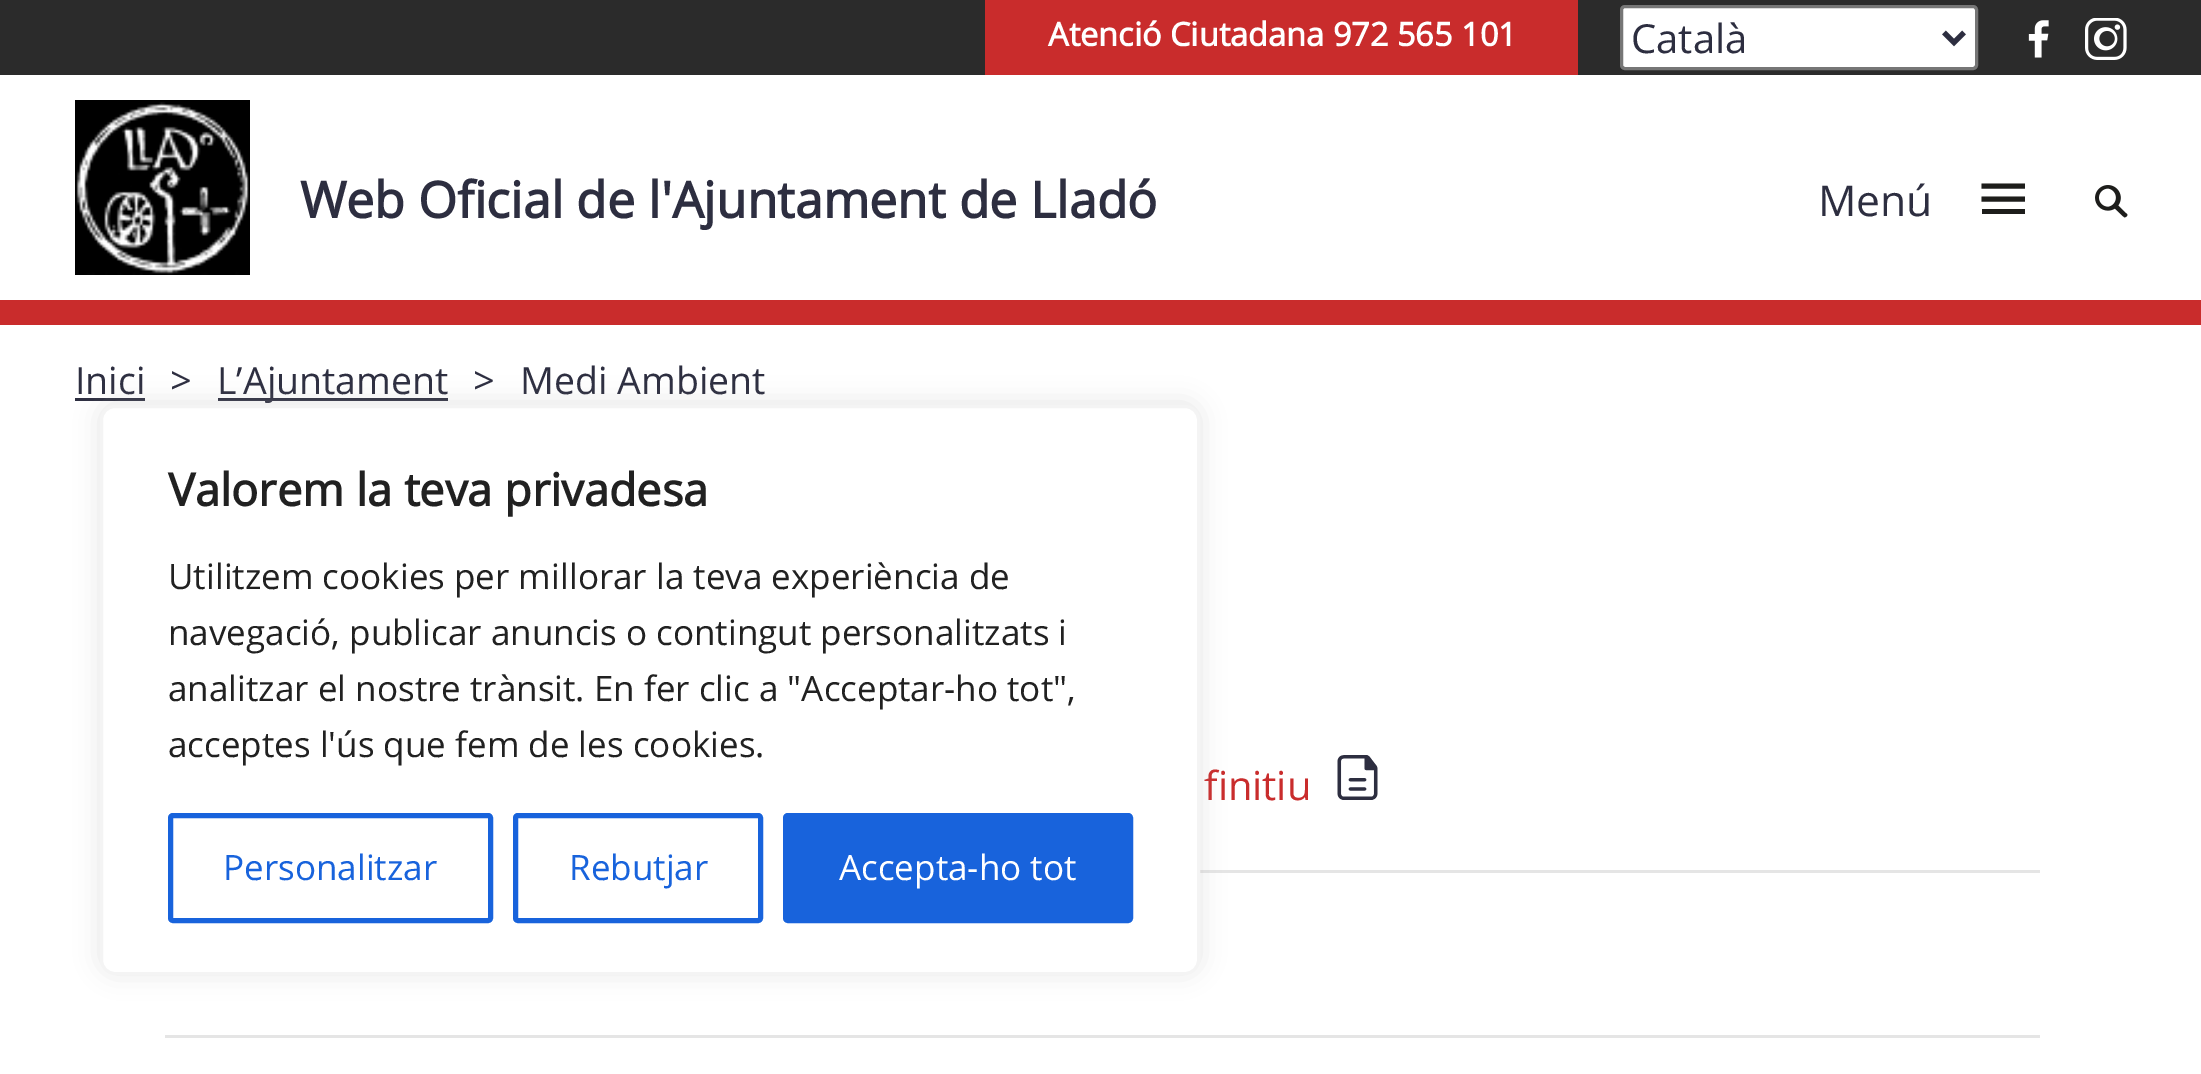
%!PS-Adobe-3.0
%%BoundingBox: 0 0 2201 1074
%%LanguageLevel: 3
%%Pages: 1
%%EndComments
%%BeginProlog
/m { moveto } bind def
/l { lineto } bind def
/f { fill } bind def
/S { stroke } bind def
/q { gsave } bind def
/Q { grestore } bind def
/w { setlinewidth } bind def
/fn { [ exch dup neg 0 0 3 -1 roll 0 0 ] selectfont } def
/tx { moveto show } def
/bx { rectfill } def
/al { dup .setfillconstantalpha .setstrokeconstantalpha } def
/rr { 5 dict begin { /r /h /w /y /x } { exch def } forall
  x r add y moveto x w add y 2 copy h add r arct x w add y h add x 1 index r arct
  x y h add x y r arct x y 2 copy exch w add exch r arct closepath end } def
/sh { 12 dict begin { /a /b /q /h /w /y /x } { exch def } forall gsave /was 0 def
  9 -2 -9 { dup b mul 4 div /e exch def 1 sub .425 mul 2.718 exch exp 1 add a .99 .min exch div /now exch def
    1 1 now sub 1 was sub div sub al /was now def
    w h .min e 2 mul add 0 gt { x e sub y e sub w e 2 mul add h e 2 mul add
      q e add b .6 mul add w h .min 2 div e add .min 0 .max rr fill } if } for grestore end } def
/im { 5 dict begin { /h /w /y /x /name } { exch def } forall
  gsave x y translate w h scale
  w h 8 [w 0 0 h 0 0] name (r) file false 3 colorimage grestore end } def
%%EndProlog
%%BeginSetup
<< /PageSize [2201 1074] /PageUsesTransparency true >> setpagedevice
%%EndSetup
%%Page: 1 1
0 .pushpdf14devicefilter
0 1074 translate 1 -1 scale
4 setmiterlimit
1 setgray
0 0 2201 1074 bx
0.788 0.173 0.173 setrgbcolor
0 300 2201 25 bx
0.169 setgray
0 0 2201 75 bx
0.788 0.173 0.173 setrgbcolor
985 0 593 75 bx
/OpenSans-Bold 32.5 fn
1 setgray
(Atenció Ciutadana 972 565 101) 1048 46 tx
1621.5 6.5 355 62 3.5 rr q f Q
0.463 setgray
3 w
S
0.176 0.18 0.251 setrgbcolor
5 w
1944 32.5 m 1954 42.5 l 1964 32.5 l S
/OpenSans-Regular 40 fn
(Català) 1631 53 tx
(image0.raw) 2028 20 21 38 im
(image1.raw) 2085 18 42 42 im
(image2.raw) 75 100 175 175 im
/OpenSans-Bold 50 fn
(Web Oficial de l'Ajuntament de Lladó) 300 218 tx
/OpenSans-Regular 42.5 fn
(Menú) 1818 216 tx
0.114 0.114 0.106 setrgbcolor
1981.5 186 m 2025 186 l 1981.5 199 m 2025 199 l S
1982 209 43 5 bx
(image3.raw) 2095 185 33 33 im
/OpenSans-Regular 37.5 fn
0.176 0.18 0.251 setrgbcolor
(Inici) 75 394 tx
75 398 70 3 bx
/OpenSans-Regular 38 fn
(>) 170 394 tx
218 398 230 3 bx
/OpenSans-Regular 37.5 fn
(L’Ajuntament) 217 394 tx
/OpenSans-Regular 38 fn
(>) 473 394 tx
/OpenSans-Regular 37.5 fn
(Medi Ambient) 520 394 tx
/OpenSans-Regular 40 fn
0.788 0.173 0.173 setrgbcolor
(finitiu) 1204 800 tx
(image4.raw) 1337 755 41 45 im
0.898 setgray
1200 870 840 3 bx
165 1035 1875 3 bx
0.675 0.671 0.671 setrgbcolor
100 403 1100 570 15 12.5 0.3 sh
1 setgray
101.5 406.5 1097 567 13.5 rr q f Q
0.957 setgray
3 w
S
/OpenSans-Bold 45 fn
0.129 setgray
(Valorem la teva privadesa) 168 506 tx
/OpenSans-Regular 35 fn
(Utilitzem cookies per millorar la teva experiència de) 168 589 tx
(navegació, publicar anuncis o contingut personalitzats i) 168 645 tx
(analitzar el nostre trànsit. En fer clic a "Acceptar-ho tot",) 168 701 tx
(acceptes l'ús que fem de les cookies.) 168 757 tx
0.094 0.388 0.863 setrgbcolor
5 w
170.5 815.5 320 105 2.5 rr S
(Personalitzar) 223 880 tx
515.5 815.5 245 105 2.5 rr S
(Rebutjar) 569 880 tx
785.5 815.5 345 105 2.5 rr q f Q
S
1 setgray
(Accepta-ho tot) 839 880 tx
.poppdf14devicefilter showpage
%%EOF
